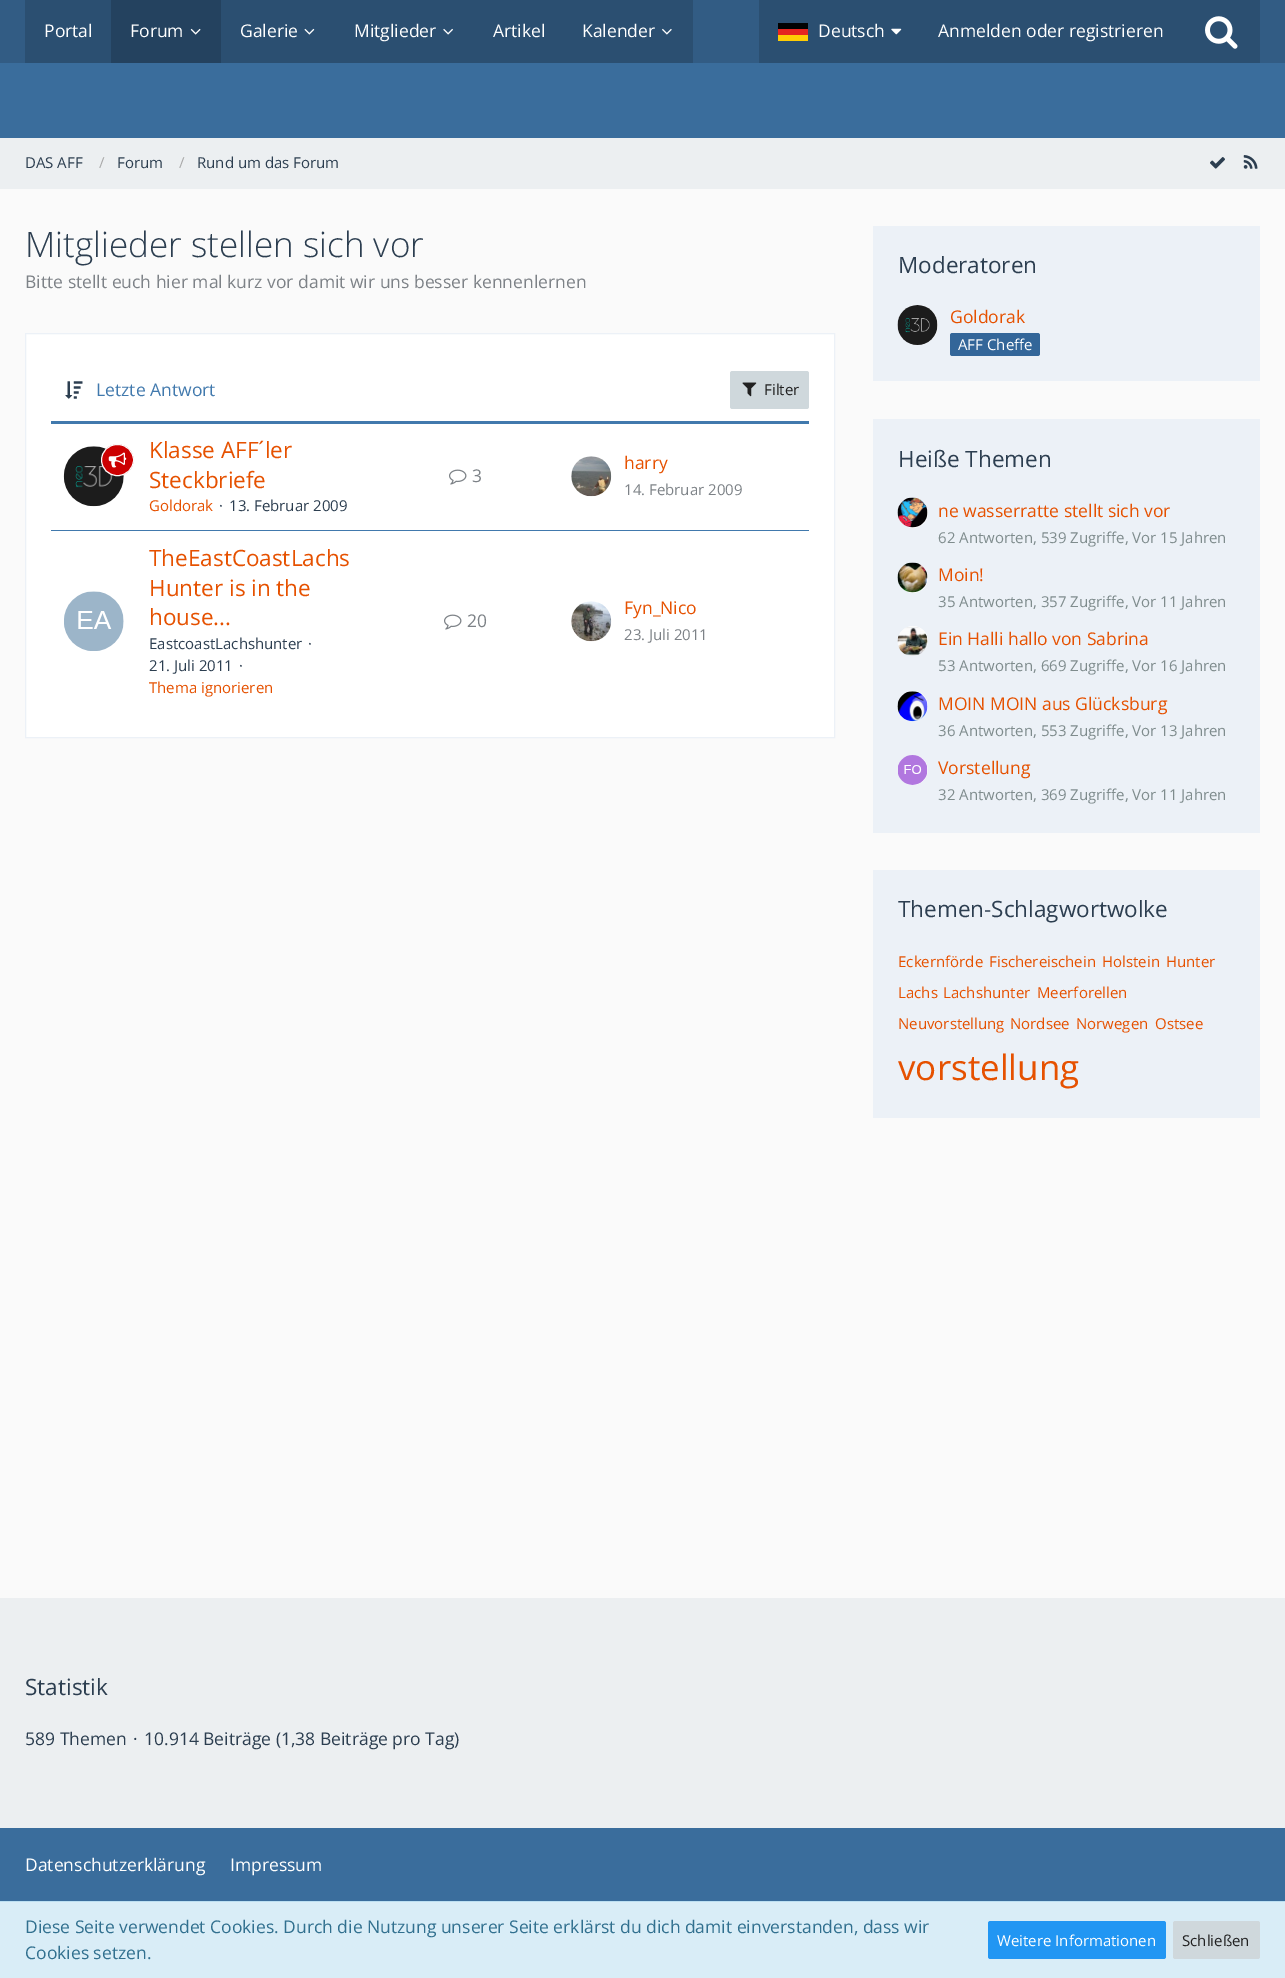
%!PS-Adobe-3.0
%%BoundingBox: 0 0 1285 1978
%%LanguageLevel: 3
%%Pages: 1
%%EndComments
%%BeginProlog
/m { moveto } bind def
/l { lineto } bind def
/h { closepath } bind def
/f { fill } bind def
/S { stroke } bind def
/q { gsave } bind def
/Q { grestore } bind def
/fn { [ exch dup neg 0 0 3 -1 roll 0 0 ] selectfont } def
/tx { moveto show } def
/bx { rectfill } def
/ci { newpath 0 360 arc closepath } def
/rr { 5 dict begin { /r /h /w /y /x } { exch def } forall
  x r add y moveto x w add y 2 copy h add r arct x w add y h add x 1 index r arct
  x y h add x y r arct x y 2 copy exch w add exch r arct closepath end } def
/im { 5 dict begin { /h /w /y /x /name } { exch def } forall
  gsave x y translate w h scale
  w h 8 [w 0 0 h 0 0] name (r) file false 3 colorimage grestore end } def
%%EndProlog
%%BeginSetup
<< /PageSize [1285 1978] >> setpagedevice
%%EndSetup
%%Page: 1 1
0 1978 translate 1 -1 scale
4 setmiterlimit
0.98 setgray
0 0 1285 1978 bx
0.227 0.427 0.612 setrgbcolor
0 63 1285 75 bx
0.196 0.361 0.518 setrgbcolor
0 0 1285 63 bx
0.169 0.31 0.443 setrgbcolor
25 0 86 63 bx
/OpenSans-Regular 17.5 fn
1 setgray
(Portal) 44 37 tx
0.141 0.259 0.373 setrgbcolor
111 0 110 63 bx
1 setgray
(Forum) 130 37 tx
(image0.raw) 190 28 11 7 im
0.169 0.31 0.443 setrgbcolor
221 0 472 63 bx
1 setgray
(Galerie) 240 37 tx
(image1.raw) 304 28 11 7 im
(Mitglieder) 354 37 tx
(image2.raw) 443 28 10 7 im
(Artikel) 493 37 tx
(Kalender) 582 37 tx
(image3.raw) 662 28 10 7 im
0.169 0.31 0.443 setrgbcolor
759 0 501 63 bx
0.004 0.008 0.008 setrgbcolor
778 23 30 6 bx
1 0.8 0.016 setrgbcolor
778 35 30 6 bx
0.898 0.141 0.125 setrgbcolor
778 29 30 6 bx
1 setgray
(Deutsch) 818 37 tx
(image4.raw) 891 28 11 7 im
(Anmelden oder registrieren) 938 37 tx
(image5.raw) 1205 16 33 33 im
0.925 0.937 0.945 setrgbcolor
0 138 1285 51 bx
/OpenSans-Regular 15 fn
0.173 0.243 0.314 setrgbcolor
(DAS AFF) 25 168 tx
0.667 setgray
(/) 99 168 tx
0.173 0.243 0.314 setrgbcolor
(Forum) 117 168 tx
0.667 setgray
(/) 179 168 tx
0.173 0.243 0.314 setrgbcolor
(Rund um das Forum) 197 168 tx
(image6.raw) 1210 157 15 12 im
(image7.raw) 1243 155 15 14 im
/OpenSans-Light 35 fn
(Mitglieder stellen sich vor) 25 257 tx
/OpenSans-Regular 17.5 fn
0.49 0.51 0.529 setrgbcolor
(Bitte stellt euch hier mal kurz vor damit wir uns besser kennenlernen) 25 288 tx
1 setgray
25.5 333.5 m 834.5 333.5 l 834.5 737.5 l 25.5 737.5 l h q f Q
0.925 0.945 0.969 setrgbcolor
S
0.255 0.475 0.678 setrgbcolor
51 421 758 3 bx
(image8.raw) 65 381 18 18 im
(Letzte Antwort) 96 396 tx
0.812 0.847 0.863 setrgbcolor
730 371 79 38 2.5 rr f
(image9.raw) 742 382 15 15 im
/OpenSans-Regular 15 fn
0.129 setgray
(Filter) 764 395 tx
(image11.raw) 63 446 61 61 im
0.8 0 0.004 setrgbcolor
101.5 444.5 32 31 15.5 rr q f Q
0.98 setgray
S
(image10.raw) 108 452 19 16 im
/OpenSans-Regular 22.5 fn
0.902 0.318 0 setrgbcolor
(Klasse AFF´ler) 149 458 tx
(Steckbriefe) 149 488 tx
/OpenSans-Regular 15 fn
(Goldorak) 149 511 tx
0.173 0.243 0.314 setrgbcolor
(·) 219 511 tx
(13. Februar 2009) 229 511 tx
(image12.raw) 449 469 18 16 im
/OpenSans-Regular 17.5 fn
0.49 0.51 0.529 setrgbcolor
(3) 472 482 tx
(image13.raw) 571 456 41 41 im
0.902 0.318 0 setrgbcolor
(harry) 624 469 tx
/OpenSans-Regular 15 fn
0.49 0.51 0.529 setrgbcolor
(14. Februar 2009) 624 495 tx
0.255 0.475 0.678 setrgbcolor
51 530 758 1 bx
(image14.raw) 64 591 60 60 im
/OpenSans-Regular 22.5 fn
0.902 0.318 0 setrgbcolor
(TheEastCoastLachs) 149 566 tx
(Hunter is in the) 149 596 tx
(house...) 149 625 tx
/OpenSans-Regular 15 fn
0.173 0.243 0.314 setrgbcolor
(EastcoastLachshunter) 149 649 tx
(·) 308 649 tx
(21. Juli 2011) 149 671 tx
(·) 239 671 tx
0.902 0.318 0 setrgbcolor
(Thema ignorieren) 149 693 tx
(image12.raw) 444 614 18 16 im
/OpenSans-Regular 17.5 fn
0.49 0.51 0.529 setrgbcolor
(20) 467 627 tx
(image15.raw) 571 601 41 41 im
0.902 0.318 0 setrgbcolor
(Fyn_Nico) 624 614 tx
/OpenSans-Regular 15 fn
0.49 0.51 0.529 setrgbcolor
(23. Juli 2011) 624 640 tx
0.925 0.945 0.969 setrgbcolor
873 226 387 155 bx
/OpenSans-Regular 22.5 fn
0.173 0.243 0.314 setrgbcolor
(Moderatoren) 898 273 tx
1 setgray
918 325 20 ci f
(image16.raw) 897 305 41 40 im
/OpenSans-Regular 17.5 fn
0.902 0.318 0 setrgbcolor
(Goldorak) 950 323 tx
0.2 0.4 0.6 setrgbcolor
950 333 90 23 2.5 rr f
/OpenSans-Regular 15 fn
1 setgray
(AFF Cheffe) 958 350 tx
0.925 0.945 0.969 setrgbcolor
873 419 387 414 bx
/OpenSans-Regular 22.5 fn
0.173 0.243 0.314 setrgbcolor
(Heiße Themen) 898 467 tx
1 setgray
913 513 15 ci f
(image17.raw) 897 497 31 31 im
/OpenSans-Regular 17.5 fn
0.902 0.318 0 setrgbcolor
(ne wasserratte stellt sich vor) 938 517 tx
/OpenSans-Regular 15 fn
0.498 0.549 0.553 setrgbcolor
(62 Antworten, 539 Zugriffe, Vor 15 Jahren) 938 543 tx
1 setgray
913 578 15 ci f
(image18.raw) 897 562 31 31 im
/OpenSans-Regular 17.5 fn
0.902 0.318 0 setrgbcolor
(Moin!) 938 581 tx
/OpenSans-Regular 15 fn
0.498 0.549 0.553 setrgbcolor
(35 Antworten, 357 Zugriffe, Vor 11 Jahren) 938 607 tx
1 setgray
913 641 15 ci f
(image19.raw) 897 626 31 30 im
/OpenSans-Regular 17.5 fn
0.902 0.318 0 setrgbcolor
(Ein Halli hallo von Sabrina) 938 645 tx
/OpenSans-Regular 15 fn
0.498 0.549 0.553 setrgbcolor
(53 Antworten, 669 Zugriffe, Vor 16 Jahren) 938 671 tx
1 setgray
913 706 15 ci f
(image20.raw) 897 691 31 31 im
/OpenSans-Regular 17.5 fn
0.902 0.318 0 setrgbcolor
(MOIN MOIN aus Glücksburg) 938 710 tx
/OpenSans-Regular 15 fn
0.498 0.549 0.553 setrgbcolor
(36 Antworten, 553 Zugriffe, Vor 13 Jahren) 938 736 tx
1 setgray
913 770 15 ci f
(image21.raw) 898 755 30 30 im
/OpenSans-Regular 17.5 fn
0.902 0.318 0 setrgbcolor
(Vorstellung) 938 774 tx
/OpenSans-Regular 15 fn
0.498 0.549 0.553 setrgbcolor
(32 Antworten, 369 Zugriffe, Vor 11 Jahren) 938 800 tx
0.925 0.945 0.969 setrgbcolor
873 870 387 248 bx
/OpenSans-Regular 22.5 fn
0.173 0.243 0.314 setrgbcolor
(Themen-Schlagwortwolke) 898 917 tx
/OpenSans-Regular 15 fn
0.902 0.318 0 setrgbcolor
(Eckernförde) 898 967 tx
(Fischereischein) 989 967 tx
(Holstein) 1102 967 tx
(Hunter) 1166 967 tx
(Lachs) 898 998 tx
(Lachshunter) 943 998 tx
(Meerforellen) 1037 998 tx
(Neuvorstellung) 898 1029 tx
(Nordsee) 1010 1029 tx
(Norwegen) 1076 1029 tx
(Ostsee) 1155 1029 tx
/OpenSans-Regular 35 fn
(vorstellung) 898 1080 tx
0.925 0.937 0.945 setrgbcolor
0 1598 1285 230 bx
/OpenSans-Regular 22.5 fn
0.173 0.243 0.314 setrgbcolor
(Statistik) 25 1695 tx
/OpenSans-Regular 17.5 fn
(589 Themen) 25 1745 tx
(·) 133 1745 tx
(10.914 Beiträge \(1,38 Beiträge pro Tag\)) 144 1745 tx
0.227 0.427 0.612 setrgbcolor
0 1828 1285 73 bx
1 setgray
(Datenschutzerklärung) 25 1871 tx
(Impressum) 230 1871 tx
0.851 0.929 0.969 setrgbcolor
0 1902 1285 76 bx
0.737 0.875 0.945 setrgbcolor
0 1901 1285 1 bx
0.192 0.439 0.561 setrgbcolor
(Diese Seite verwendet Cookies. Durch die Nutzung unserer Seite erklärst du dich damit einverstanden, dass wir) 25 1933 tx
(Cookies setzen.) 25 1959 tx
0.129 0.588 0.953 setrgbcolor
988 1921 178 38 2.5 rr f
/OpenSans-Regular 15 fn
1 setgray
(Weitere Informationen) 997 1946 tx
0.812 0.847 0.863 setrgbcolor
1173 1921 87 38 2.5 rr f
0.129 setgray
(Schließen) 1182 1946 tx
showpage
%%EOF
